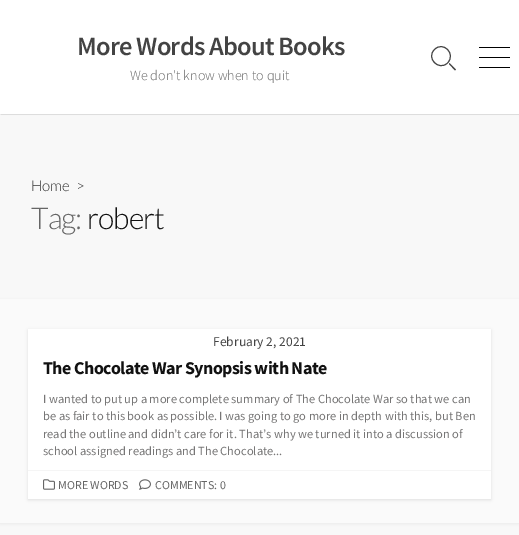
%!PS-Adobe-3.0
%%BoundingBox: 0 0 519 535
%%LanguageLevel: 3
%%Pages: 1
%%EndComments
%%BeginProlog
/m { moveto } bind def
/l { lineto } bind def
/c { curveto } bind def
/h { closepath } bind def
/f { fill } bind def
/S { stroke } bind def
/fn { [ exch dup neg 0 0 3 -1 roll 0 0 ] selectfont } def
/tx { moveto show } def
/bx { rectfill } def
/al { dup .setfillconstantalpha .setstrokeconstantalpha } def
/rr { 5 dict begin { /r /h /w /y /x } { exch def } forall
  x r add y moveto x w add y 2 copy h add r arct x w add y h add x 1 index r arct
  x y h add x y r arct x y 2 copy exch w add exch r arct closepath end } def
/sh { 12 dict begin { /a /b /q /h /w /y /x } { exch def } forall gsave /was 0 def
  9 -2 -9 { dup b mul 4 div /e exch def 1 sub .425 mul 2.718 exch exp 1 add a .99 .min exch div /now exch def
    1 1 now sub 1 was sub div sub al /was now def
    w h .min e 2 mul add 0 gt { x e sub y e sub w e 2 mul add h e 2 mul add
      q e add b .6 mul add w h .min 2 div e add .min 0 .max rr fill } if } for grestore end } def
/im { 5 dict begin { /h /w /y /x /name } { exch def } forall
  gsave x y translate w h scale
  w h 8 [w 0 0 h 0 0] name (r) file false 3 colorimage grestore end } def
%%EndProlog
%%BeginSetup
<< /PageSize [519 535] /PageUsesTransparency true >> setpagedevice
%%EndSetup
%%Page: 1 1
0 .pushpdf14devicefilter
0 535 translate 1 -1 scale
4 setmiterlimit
0.973 setgray
0 0 519 535 bx
0 setgray
1 0 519 114 0 0.5 0.4 sh
1 setgray
0 0 519 114 bx
/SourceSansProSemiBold-SemiBold 26.5 fn
0.263 setgray
77 55 m -0.75 0 (More Words About Books) ashow
/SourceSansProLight-Light 14.1 fn
0.4 setgray
(We don't know when to quit) 130 80 tx
0.267 setgray
434.5 49.5 m 443 40.5 456.5 54 447.5 63 c 439 71.5 425.5 58 434.5 49.5 c h S
449 64 m 449.5 63 l 456 69.5 l 455 70.5 l h f
0 setgray
479 47 31 1 bx
479 57 31 1 bx
479 67 31 1 bx
/Lato-Light 15 fn
0.2 setgray
(Home) 31 191 tx
(>) 76 191 tx
/Lato-Light 30 fn
0.4 setgray
31 229 m -1 0 (Tag:) ashow
0.067 setgray
87 229 m -1 0 (robert) ashow
0 setgray
0 300 519 224 0 1.5 0.05 sh
0.98 setgray
0 299 519 224 bx
0 setgray
28 330 463 170 0 1.5 0.1 sh
1 setgray
28 329 463 170 bx
0.961 setgray
28 470 463 1 bx
/SourceSansPro-Regular 13.5 fn
0.263 setgray
(February 2, 2021) 213 346 tx
/SourceSansPro-Bold 18 fn
0.067 setgray
43 374 m -0.55 0 (The Chocolate War Synopsis with Nate) ashow
/SourceSansPro-Regular 12.45 fn
0.467 0.463 0.463 setrgbcolor
(I wanted to put up a more complete summary of The Chocolate War so that we can) 43 403 tx
(be as fair to this book as possible. I was going to go more in depth with this, but Ben) 43 420 tx
(read the outline and didn’t care for it. That’s why we turned it into a discussion of) 43 438 tx
(school assigned readings and The Chocolate...) 43 455 tx
(image0.raw) 43 479 12 11 im
/SourceSansPro-Regular 12 fn
0.4 setgray
(MORE WORDS) 58 489 tx
(image1.raw) 139 479 12 11 im
(COMMENTS: 0) 155 489 tx
.poppdf14devicefilter showpage
%%EOF
